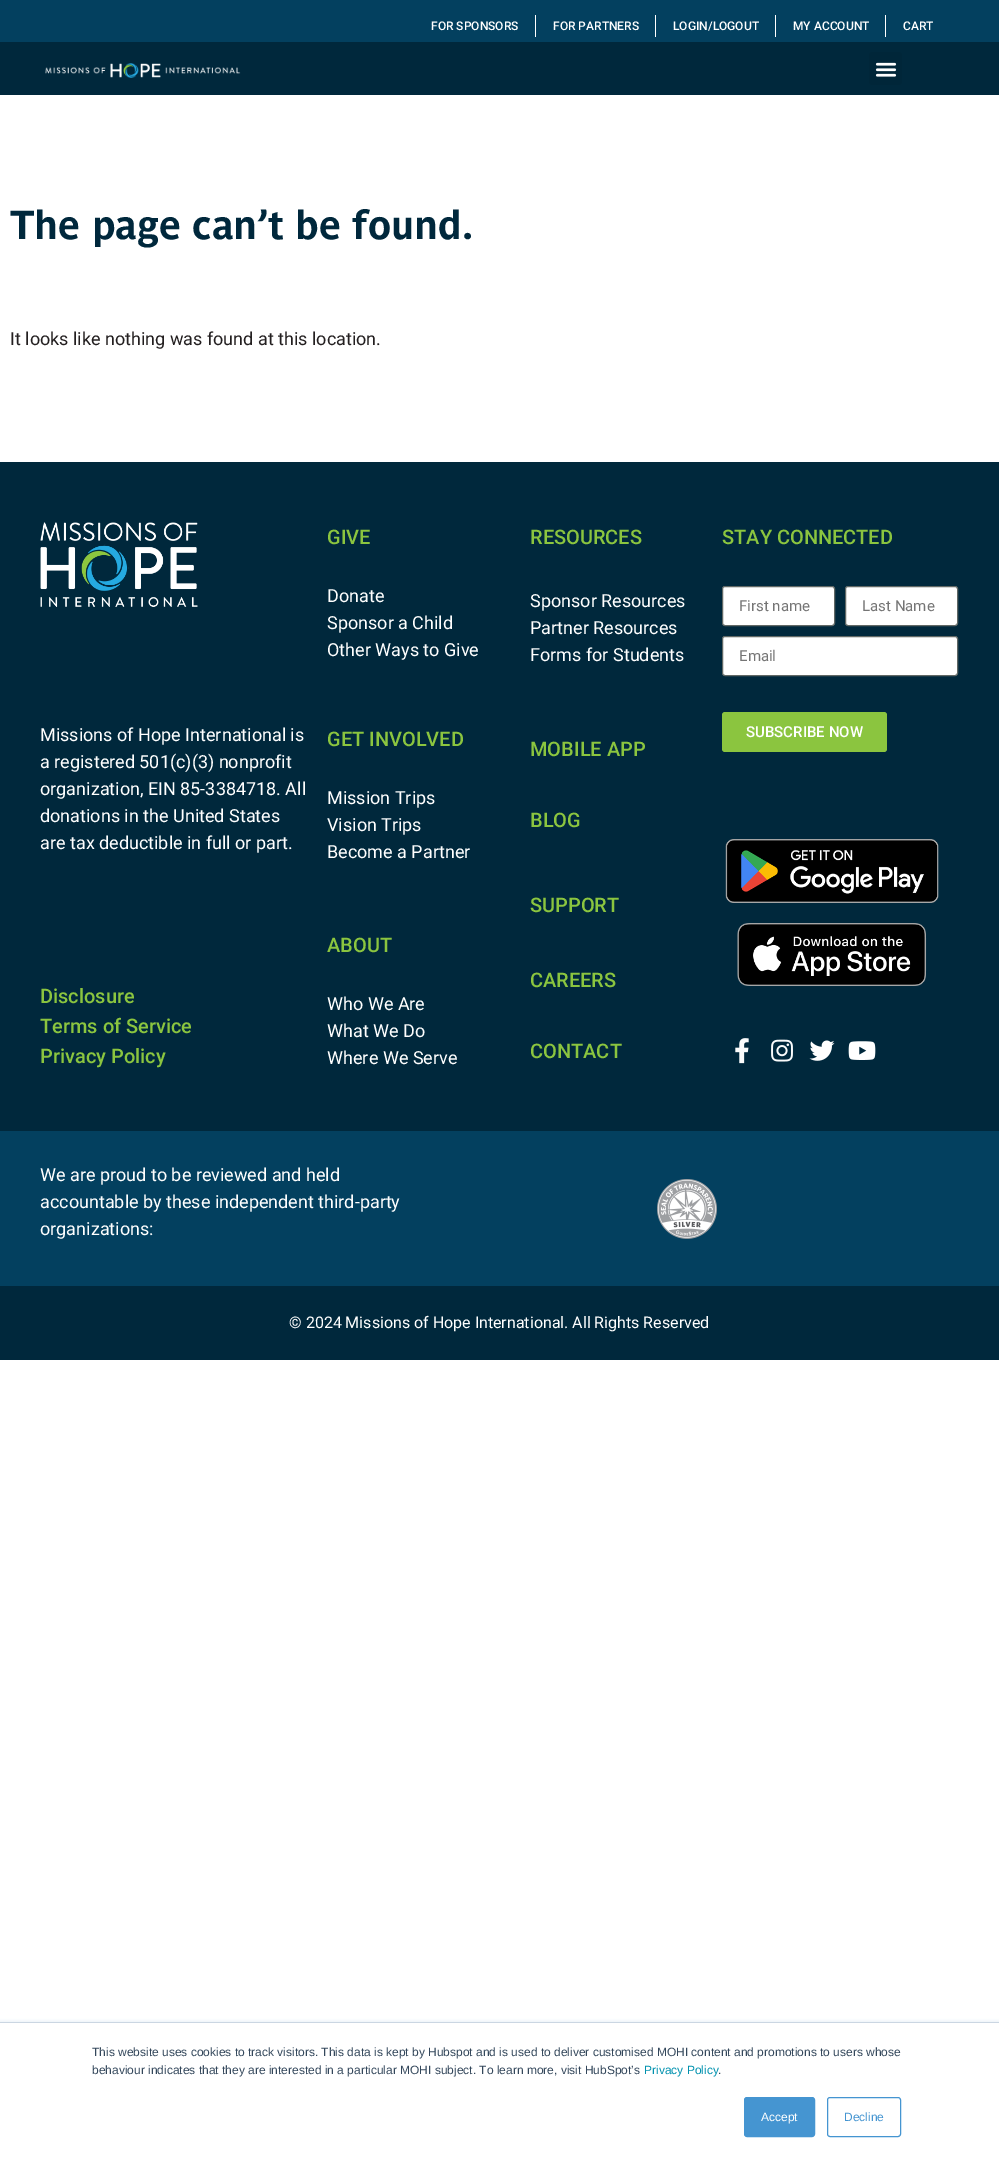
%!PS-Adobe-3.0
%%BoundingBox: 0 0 999 2163
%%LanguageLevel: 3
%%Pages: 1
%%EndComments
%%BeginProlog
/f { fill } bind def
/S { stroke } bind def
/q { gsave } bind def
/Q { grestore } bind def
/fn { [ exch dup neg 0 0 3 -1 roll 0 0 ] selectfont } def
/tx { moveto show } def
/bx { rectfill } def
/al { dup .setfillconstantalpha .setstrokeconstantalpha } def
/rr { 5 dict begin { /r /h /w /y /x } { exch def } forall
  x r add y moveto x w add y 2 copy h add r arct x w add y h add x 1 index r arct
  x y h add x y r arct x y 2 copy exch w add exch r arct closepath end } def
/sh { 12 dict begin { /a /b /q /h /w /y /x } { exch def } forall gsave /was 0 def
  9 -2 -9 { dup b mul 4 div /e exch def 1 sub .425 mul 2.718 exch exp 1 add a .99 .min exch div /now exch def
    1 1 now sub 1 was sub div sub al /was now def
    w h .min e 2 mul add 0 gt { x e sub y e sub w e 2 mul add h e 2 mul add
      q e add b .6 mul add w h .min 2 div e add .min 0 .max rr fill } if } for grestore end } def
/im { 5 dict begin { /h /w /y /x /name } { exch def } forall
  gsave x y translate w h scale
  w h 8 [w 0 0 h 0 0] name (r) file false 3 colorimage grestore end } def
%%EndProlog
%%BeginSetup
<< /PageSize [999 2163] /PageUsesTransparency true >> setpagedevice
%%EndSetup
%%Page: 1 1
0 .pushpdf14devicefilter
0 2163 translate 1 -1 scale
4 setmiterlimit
1 setgray
0 0 999 2163 bx
0.012 0.251 0.373 setrgbcolor
0 0 999 42 bx
/Roboto-Medium 12 fn
1 setgray
(FOR SPONSORS) 431 30 tx
535 15 1 22 bx
(FOR PARTNERS) 553 30 tx
655 15 1 22 bx
(LOGIN/LOGOUT) 673 30 tx
775 15 1 22 bx
(MY ACCOUNT) 793 30 tx
885 15 1 22 bx
(CART) 903 30 tx
0 0.157 0.235 setrgbcolor
0 42 999 53 bx
(image0.raw) 45 63 196 15 im
0 0.149 0.224 setrgbcolor
869 52 33 33 3 rr f
(image1.raw) 875 62 22 15 im
/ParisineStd-Bold 40 fn
0 0.157 0.235 setrgbcolor
(The page can’t be found.) 10 239 tx
/Roboto-Regular 18 fn
0.137 0.122 0.125 setrgbcolor
(It looks like nothing was found at this location.) 10 345 tx
0 0.157 0.235 setrgbcolor
0 462 999 669 bx
/Roboto-Medium 20 fn
0.545 0.773 0.247 setrgbcolor
(GIVE) 327 544 tx
/Roboto-Regular 18 fn
1 setgray
(Donate) 327 602 tx
(Sponsor a Child) 327 629 tx
(Other Ways to Give) 327 656 tx
/Roboto-Medium 20 fn
0.545 0.773 0.247 setrgbcolor
(GET INVOLVED) 327 746 tx
/Roboto-Regular 18 fn
1 setgray
(Mission Trips) 327 804 tx
(Vision Trips) 327 831 tx
(Become a Partner) 327 858 tx
/Roboto-Medium 20 fn
0.545 0.773 0.247 setrgbcolor
(ABOUT) 327 952 tx
/Roboto-Regular 18 fn
1 setgray
(Who We Are) 327 1010 tx
(What We Do) 327 1037 tx
(Where We Serve) 327 1064 tx
/Roboto-Medium 20 fn
0.545 0.773 0.247 setrgbcolor
(RESOURCES) 530 544 tx
/Roboto-Regular 18 fn
1 setgray
(Sponsor Resources) 530 607 tx
(Partner Resources) 530 634 tx
(Forms for Students) 530 661 tx
/Roboto-Medium 20 fn
0.545 0.773 0.247 setrgbcolor
(MOBILE APP) 530 756 tx
(BLOG) 530 827 tx
(SUPPORT) 530 912 tx
(CAREERS) 530 987 tx
(CONTACT) 530 1058 tx
(STAY CONNECTED) 722 544 tx
1 setgray
722.5 586.5 112 39 2.5 rr q f Q
0.38 0.408 0.396 setrgbcolor
S
/Roboto-Regular 15 fn
0.459 setgray
(First name) 739 611 tx
1 setgray
845.5 586.5 112 39 2.5 rr q f Q
0.38 0.408 0.396 setrgbcolor
S
0.459 setgray
(Last Name) 862 611 tx
1 setgray
722.5 636.5 235 39 2.5 rr q f Q
0.38 0.408 0.396 setrgbcolor
S
0.459 setgray
(Email) 739 661 tx
0.545 0.773 0.247 setrgbcolor
722 712 165 40 3 rr f
/Roboto-Medium 15 fn
1 setgray
(SUBSCRIBE NOW) 746 737 tx
(image2.raw) 725 839 214 64 im
(image3.raw) 737 923 190 63 im
(image4.raw) 735 1038 14 26 im
(image5.raw) 771 1039 22 23 im
(image6.raw) 809 1040 26 21 im
(image7.raw) 848 1041 28 19 im
(image8.raw) 40 522 158 85 im
/Roboto-Regular 18 fn
(Missions of Hope International is) 40 741 tx
(a registered 501\(c\)\(3\) nonprofit) 40 768 tx
(organization, EIN 85-3384718. All) 40 795 tx
(donations in the United States) 40 822 tx
(are tax deductible in full or part.) 40 849 tx
/Roboto-Medium 20 fn
0.545 0.773 0.247 setrgbcolor
(Disclosure) 40 1003 tx
(Terms of Service) 40 1033 tx
(Privacy Policy) 40 1063 tx
0.012 0.251 0.373 setrgbcolor
0 1131 999 155 bx
/Roboto-Regular 18 fn
1 setgray
(We are proud to be reviewed and held) 40 1181 tx
(accountable by these independent third-party) 40 1208 tx
(organizations:) 40 1235 tx
(image9.raw) 657 1179 60 60 im
0 0.157 0.235 setrgbcolor
0 1286 999 74 bx
/Roboto-Regular 16 fn
1 setgray
(© 2024 Missions of Hope International. All Rights Reserved) 289 1328 tx
q
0 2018 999 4 rectclip
0.918 0.941 0.965 setrgbcolor
0 2021 999 141 0 1.5 1 sh
Q
0.796 0.839 0.886 setrgbcolor
0 2022 999 1 bx
/LiberationSans-Regular 12 fn
0.2 0.278 0.357 setrgbcolor
(This website uses cookies to track visitors. This data is kept by Hubspot and is used to deliver customised MOHI content and promotions to users whose) 92 2056 tx
(behaviour indicates that they are interested in a particular MOHI subject. To learn more, visit HubSpot’s) 92 2074 tx
0 0.569 0.682 setrgbcolor
(Privacy Policy) 644 2074 tx
0.2 0.278 0.357 setrgbcolor
(.) 718 2074 tx
0.271 0.584 0.82 setrgbcolor
744.5 2097.5 70 39 2.5 rr q f Q
S
1 setgray
(Accept) 761 2121 tx
0.271 0.584 0.82 setrgbcolor
827.5 2097.5 73 39 2.5 rr S
(Decline) 844 2121 tx
.poppdf14devicefilter showpage
%%EOF
